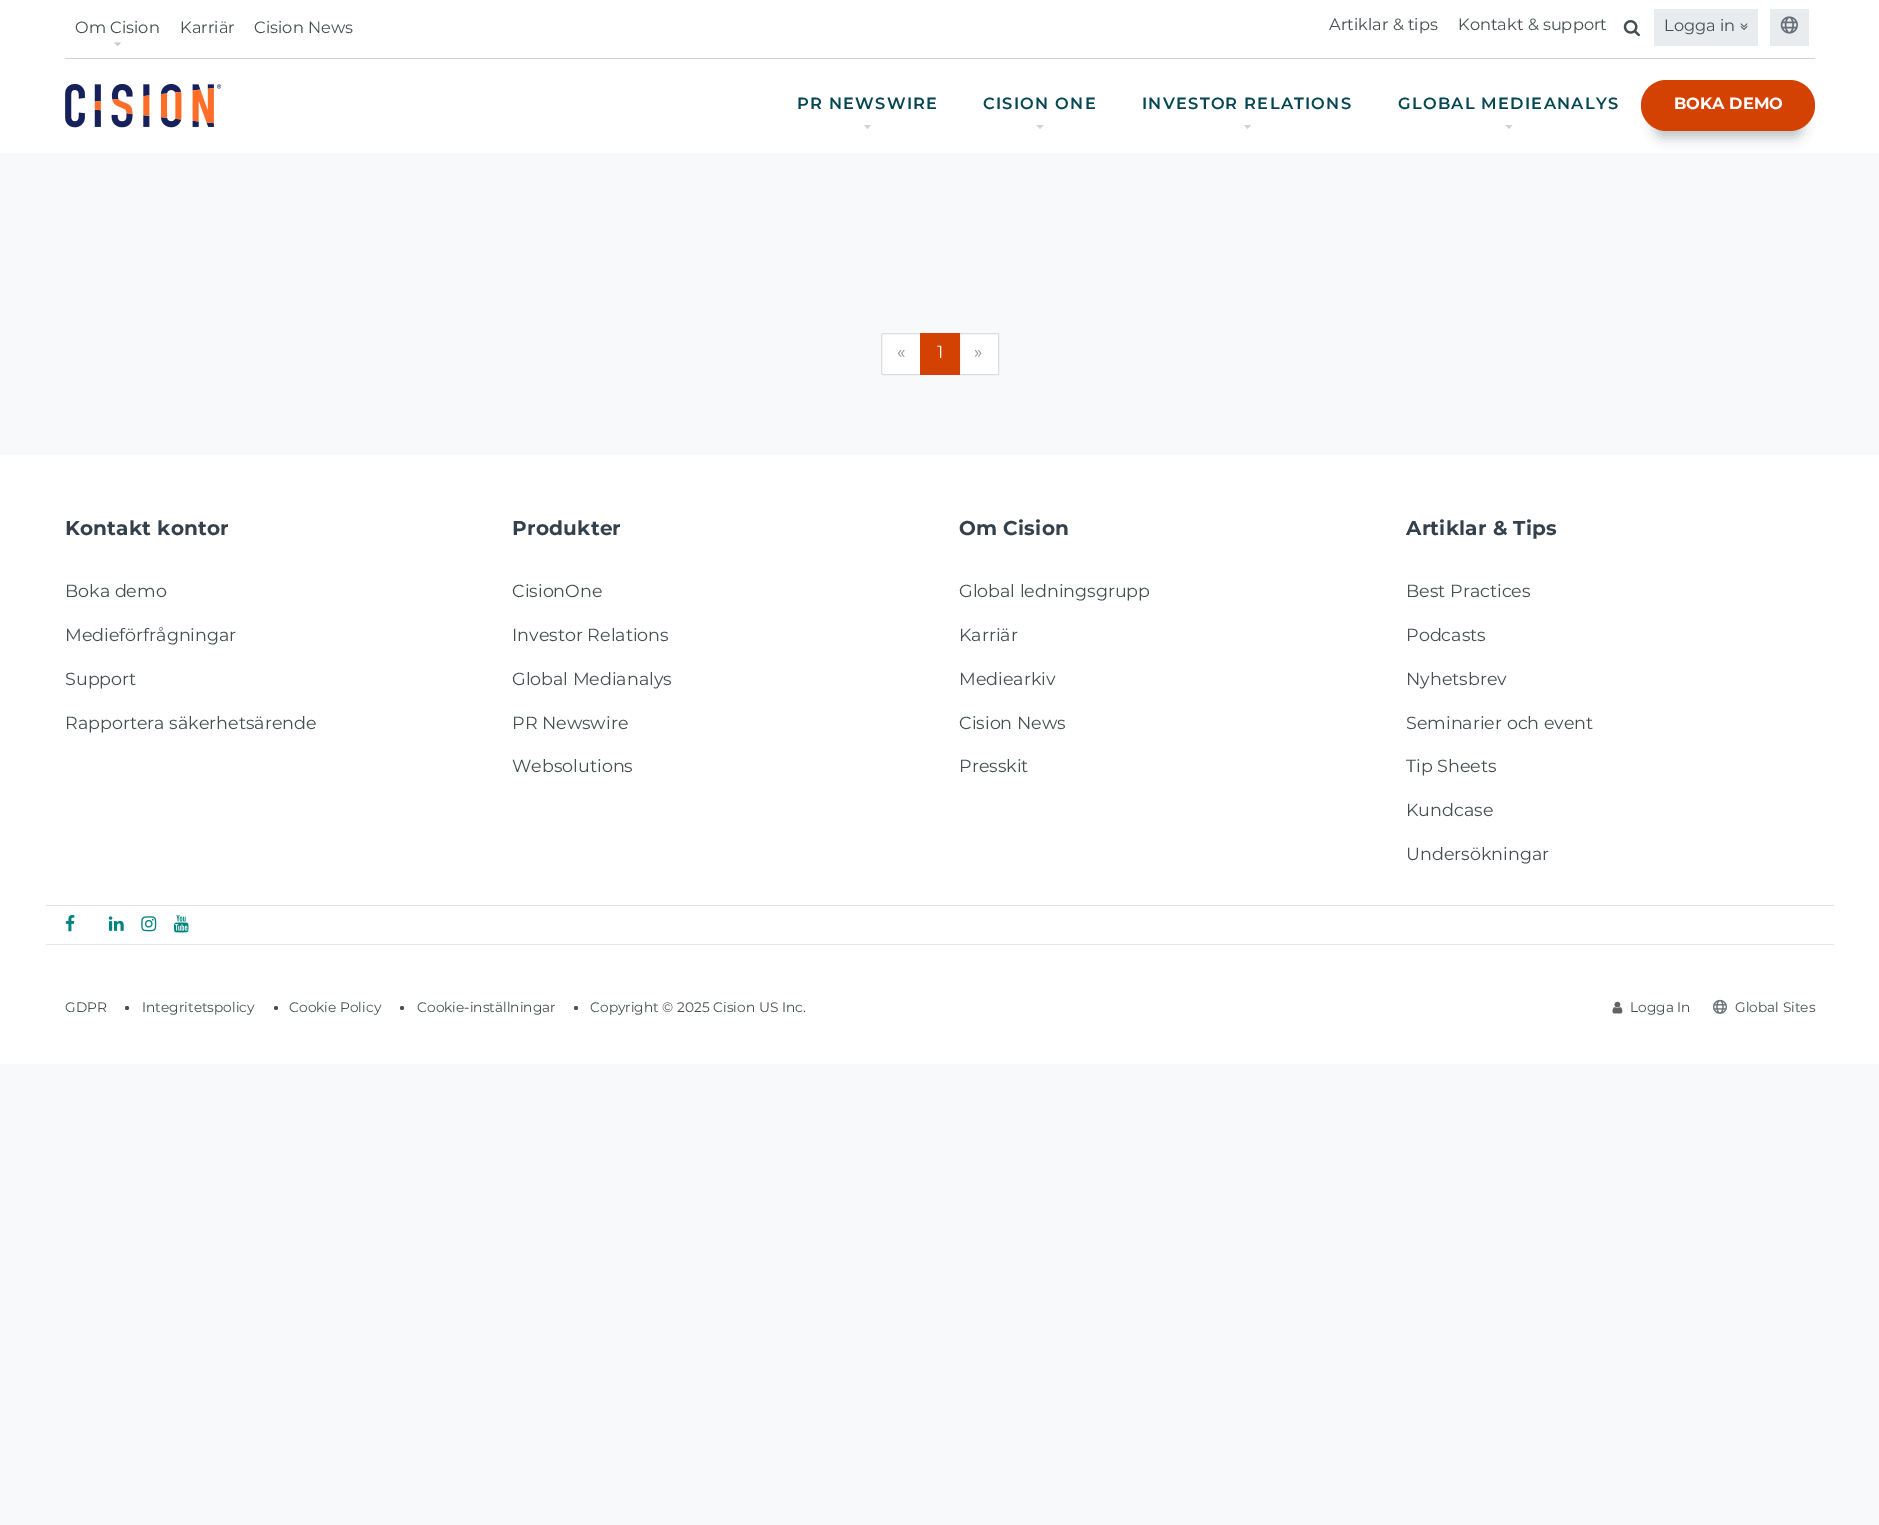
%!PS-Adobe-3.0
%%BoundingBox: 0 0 1879 1525
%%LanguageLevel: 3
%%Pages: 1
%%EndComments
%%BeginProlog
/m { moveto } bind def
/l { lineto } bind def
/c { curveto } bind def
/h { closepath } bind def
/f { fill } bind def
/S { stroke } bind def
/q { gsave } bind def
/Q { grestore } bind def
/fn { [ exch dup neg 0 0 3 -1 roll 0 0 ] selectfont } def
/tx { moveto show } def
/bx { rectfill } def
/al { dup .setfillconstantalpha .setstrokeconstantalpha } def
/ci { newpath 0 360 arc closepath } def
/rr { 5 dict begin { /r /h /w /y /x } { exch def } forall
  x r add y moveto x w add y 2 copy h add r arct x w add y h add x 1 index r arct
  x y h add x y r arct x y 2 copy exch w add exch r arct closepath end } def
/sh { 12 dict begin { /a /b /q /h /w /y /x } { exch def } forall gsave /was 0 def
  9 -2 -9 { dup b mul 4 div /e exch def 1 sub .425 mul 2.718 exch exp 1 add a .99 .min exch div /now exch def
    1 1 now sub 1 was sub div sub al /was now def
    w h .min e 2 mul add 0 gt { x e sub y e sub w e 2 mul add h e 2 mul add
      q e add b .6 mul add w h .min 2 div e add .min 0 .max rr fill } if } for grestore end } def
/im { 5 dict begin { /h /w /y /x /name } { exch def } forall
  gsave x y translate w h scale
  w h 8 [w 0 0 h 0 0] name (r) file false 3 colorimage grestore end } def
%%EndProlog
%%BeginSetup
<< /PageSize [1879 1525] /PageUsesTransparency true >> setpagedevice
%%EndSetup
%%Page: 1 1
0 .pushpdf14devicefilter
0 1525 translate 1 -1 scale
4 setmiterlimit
0.973 0.976 0.98 setrgbcolor
0 0 1879 1525 bx
1 setgray
0 0 1879 153 bx
0.82 0.827 0.831 setrgbcolor
65 58 1750 1 bx
/Montserrat-Regular 16.25 fn
0.275 0.314 0.325 setrgbcolor
(Om Cision) 75 33 tx
0.784 setgray
114 42.5 m 121 42.5 l 117.5 46 l h f
0.275 0.314 0.325 setrgbcolor
(Karriär) 180 33 tx
(Cision News) 254 33 tx
(Artiklar & tips) 1329 30 tx
(Kontakt & support) 1458 30 tx
(image0.raw) 1623 20 17 17 im
0.914 0.925 0.937 setrgbcolor
1654 9 104 37 bx
0.275 0.314 0.325 setrgbcolor
(Logga in) 1664 31 tx
(image1.raw) 1740 23 8 7 im
0.914 0.925 0.937 setrgbcolor
1770 9 39 37 bx
(image2.raw) 1780 16 18 18 im
(image3.raw) 65 84 156 44 im
/Montserrat-SemiBold 16.25 fn
0.016 0.278 0.325 setrgbcolor
797 109 m 1.25 0 (PR NEWSWIRE) ashow
0.82 0.831 0.843 setrgbcolor
864 125 m 871 125 l 867.5 129 l h f
0.016 0.278 0.325 setrgbcolor
983 109 m 1.25 0 (CISION ONE) ashow
0.82 0.831 0.843 setrgbcolor
1036 125 m 1044 125 l 1040 129 l h f
0.016 0.278 0.325 setrgbcolor
1142 109 m 1.25 0 (INVESTOR RELATIONS) ashow
0.82 0.831 0.843 setrgbcolor
1244 125 m 1251 125 l 1247.5 129 l h f
0.016 0.278 0.325 setrgbcolor
1398 109 m 1.25 0 (GLOBAL MEDIEANALYS) ashow
0.82 0.831 0.843 setrgbcolor
1505 125 m 1512.5 125 l 1509 129 l h f
0.008 0.11 0.149 setrgbcolor
1654 111 149 27 13.5 6 0.25 sh
0.827 0.259 0.012 setrgbcolor
1641 80 174 51 25.5 rr f
/Montserrat-Bold 16.25 fn
1 setgray
(BOKA DEMO) 1674 109 tx
883.5 333.5 m 920.5 333.5 l 920.5 374.5 l 883.5 374.5 l 882.5 374.5 881.5 373.5 881.5 372.5 c 881.5 335.5 l 881.5 334.5 882.5 333.5 883.5 333.5 c h q f Q
0.867 setgray
S
/Montserrat-Regular 17.5 fn
0.541 0.541 0.553 setrgbcolor
(«) 897 358 tx
1 setgray
959.5 333.5 m 998.5 333.5 l 998.5 374.5 l 959.5 374.5 l h q f Q
0.867 setgray
S
0.827 0.259 0.012 setrgbcolor
920 333 40 42 bx
1 setgray
(1) 937 358 tx
0.541 0.541 0.553 setrgbcolor
(») 974 358 tx
1 setgray
0 455 1879 609 bx
/Montserrat-Bold 20 fn
0.204 0.251 0.294 setrgbcolor
65 535 m 0.25 0 (Kontakt kontor) ashow
/Montserrat-Regular 17.5 fn
0.275 0.314 0.325 setrgbcolor
(Boka demo) 65 597 tx
(Medieförfrågningar) 65 641 tx
(Support) 65 685 tx
(Rapportera säkerhetsärende) 65 729 tx
/Montserrat-Bold 20 fn
0.204 0.251 0.294 setrgbcolor
512 535 m 0.25 0 (Produkter) ashow
/Montserrat-Regular 17.5 fn
0.275 0.314 0.325 setrgbcolor
(CisionOne) 512 597 tx
(Investor Relations) 512 641 tx
(Global Medianalys) 512 685 tx
(PR Newswire) 512 729 tx
(Websolutions) 512 772 tx
/Montserrat-Bold 20 fn
0.204 0.251 0.294 setrgbcolor
959 535 m 0.25 0 (Om Cision) ashow
/Montserrat-Regular 17.5 fn
0.275 0.314 0.325 setrgbcolor
(Global ledningsgrupp) 959 597 tx
(Karriär) 959 641 tx
(Mediearkiv) 959 685 tx
(Cision News) 959 729 tx
(Presskit) 959 772 tx
/Montserrat-Bold 20 fn
0.204 0.251 0.294 setrgbcolor
1406 535 m 0.25 0 (Artiklar & Tips) ashow
/Montserrat-Regular 17.5 fn
0.275 0.314 0.325 setrgbcolor
(Best Practices) 1406 597 tx
(Podcasts) 1406 641 tx
(Nyhetsbrev) 1406 685 tx
(Seminarier och event) 1406 729 tx
(Tip Sheets) 1406 772 tx
(Kundcase) 1406 816 tx
(Undersökningar) 1406 860 tx
0.871 0.886 0.902 setrgbcolor
46 905 1788 1 bx
(image4.raw) 65 915 10 17 im
(image5.raw) 108 916 16 15 im
(image6.raw) 141 916 16 16 im
(image7.raw) 174 915 15 18 im
0.91 0.906 0.906 setrgbcolor
46 944 1788 1 bx
/Montserrat-Regular 13.75 fn
0.275 0.314 0.325 setrgbcolor
(GDPR) 65 1012 tx
127 1008 2 ci f
(Integritetspolicy) 142 1012 tx
276 1008 2 ci f
(Cookie Policy) 289 1012 tx
402 1008 2 ci f
(Cookie-inställningar) 417 1012 tx
576 1008 2 ci f
(Copyright © 2025 Cision US Inc.) 590 1012 tx
(image8.raw) 1612 1001 11 13 im
(Logga In) 1630 1012 tx
(image9.raw) 1713 999 14 15 im
(Global Sites) 1735 1012 tx
.poppdf14devicefilter showpage
%%EOF
